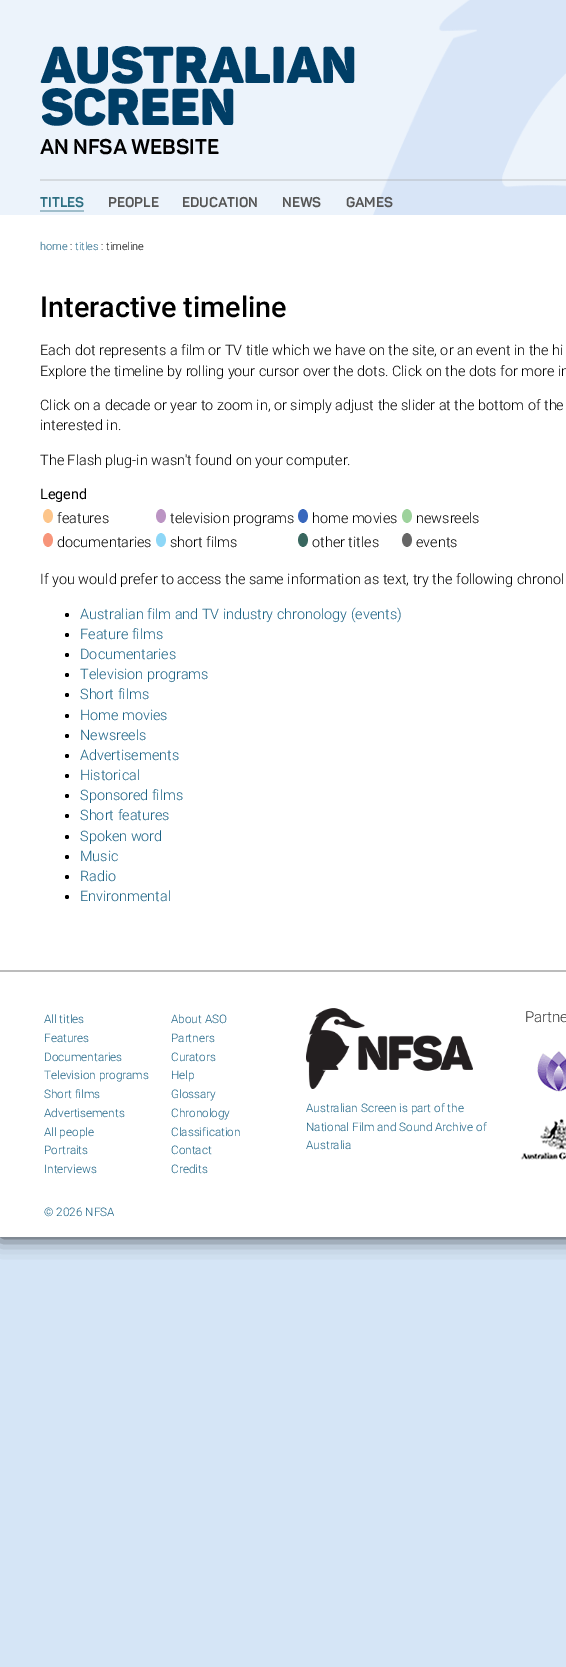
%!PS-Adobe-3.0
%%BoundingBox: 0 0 566 1667
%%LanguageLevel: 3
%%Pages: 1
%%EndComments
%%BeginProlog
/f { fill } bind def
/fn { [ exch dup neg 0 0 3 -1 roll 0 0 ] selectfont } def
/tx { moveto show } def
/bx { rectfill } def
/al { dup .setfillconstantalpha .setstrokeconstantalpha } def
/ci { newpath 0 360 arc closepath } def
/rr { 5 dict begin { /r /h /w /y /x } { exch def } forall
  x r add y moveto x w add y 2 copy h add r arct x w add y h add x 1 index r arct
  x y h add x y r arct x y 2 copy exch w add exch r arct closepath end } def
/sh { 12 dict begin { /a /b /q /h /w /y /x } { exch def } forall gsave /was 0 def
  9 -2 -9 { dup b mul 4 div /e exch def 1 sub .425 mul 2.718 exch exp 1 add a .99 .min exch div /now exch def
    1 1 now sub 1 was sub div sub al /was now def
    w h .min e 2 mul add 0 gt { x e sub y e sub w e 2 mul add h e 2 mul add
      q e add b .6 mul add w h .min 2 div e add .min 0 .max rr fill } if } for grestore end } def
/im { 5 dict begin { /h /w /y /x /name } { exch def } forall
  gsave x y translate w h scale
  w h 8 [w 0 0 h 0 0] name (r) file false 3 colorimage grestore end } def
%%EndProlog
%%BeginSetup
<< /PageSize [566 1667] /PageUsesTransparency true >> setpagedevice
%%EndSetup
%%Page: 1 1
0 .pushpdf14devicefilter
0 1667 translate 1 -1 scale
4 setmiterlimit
0.835 0.898 0.965 setrgbcolor
0 0 566 1667 bx
0 setgray
0 0 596 1237 0 10 0.8 sh
0.925 0.953 0.984 setrgbcolor
0 0 566 215 bx
(image0.raw) 373 0 193 215 im
/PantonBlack-Regular 51 fn
0 0.243 0.4 setrgbcolor
(AUSTRALIAN) 40 83 tx
(SCREEN) 40 125 tx
/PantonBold-Regular 21 fn
0 setgray
(AN NFSA WEBSITE) 40 154 tx
0.3 al
0.624 setgray
40 179 526 2 bx
/PantonBold-Regular 14 fn
1 al
0.176 0.435 0.51 setrgbcolor
(TITLES) 40 207 tx
0.627 0.745 0.796 setrgbcolor
40 210 44 2 bx
0.333 setgray
(PEOPLE) 108 207 tx
(EDUCATION) 182 207 tx
(NEWS) 282 207 tx
(GAMES) 346 207 tx
1 setgray
0 215 566 755 bx
/Roboto-Light 11 fn
0.102 0.38 0.518 setrgbcolor
(home) 40 250 tx
0 setgray
(:) 70 250 tx
0.102 0.38 0.518 setrgbcolor
(titles) 75 250 tx
0 setgray
(: timeline) 101 250 tx
/Roboto-Medium 28.75 fn
(Interactive timeline) 40 317 tx
/Roboto-Light 14.4 fn
(Each dot represents a film or TV title which we have on the site, or an event in the hi) 40 355 tx
(Explore the timeline by rolling your cursor over the dots. Click on the dots for more in) 40 376 tx
(Click on a decade or year to zoom in, or simply adjust the slider at the bottom of the) 40 410 tx
(interested in.) 40 430 tx
(The Flash plug-in wasn't found on your computer.) 40 465 tx
/Roboto-Regular 14.4 fn
(Legend) 40 499 tx
(image1.raw) 43 509 10 14 im
/Roboto-Light 14.4 fn
(features) 57 523 tx
(image2.raw) 156 509 10 14 im
(television programs) 170 523 tx
(image3.raw) 298 509 10 14 im
(home movies) 312 523 tx
(image4.raw) 402 509 10 14 im
(newsreels) 416 523 tx
(image5.raw) 43 533 10 14 im
(documentaries) 57 547 tx
(image6.raw) 156 533 10 14 im
(short films) 170 547 tx
(image7.raw) 298 533 10 14 im
(other titles) 312 547 tx
(image8.raw) 402 533 10 14 im
(events) 416 547 tx
(If you would prefer to access the same information as text, try the following chronol) 40 584 tx
67 615 2 ci f
0.102 0.38 0.518 setrgbcolor
(Australian film and TV industry chronology \(events\)) 80 619 tx
0 setgray
67 635 2 ci f
0.102 0.38 0.518 setrgbcolor
(Feature films) 80 639 tx
0 setgray
67 655 2 ci f
0.102 0.38 0.518 setrgbcolor
(Documentaries) 80 659 tx
0 setgray
67 675 2 ci f
0.102 0.38 0.518 setrgbcolor
(Television programs) 80 679 tx
0 setgray
67 695 2 ci f
0.102 0.38 0.518 setrgbcolor
(Short films) 80 699 tx
0 setgray
67 716 2 ci f
0.102 0.38 0.518 setrgbcolor
(Home movies) 80 720 tx
0 setgray
67 736 2 ci f
0.102 0.38 0.518 setrgbcolor
(Newsreels) 80 740 tx
0 setgray
67 756 2 ci f
0.102 0.38 0.518 setrgbcolor
(Advertisements) 80 760 tx
0 setgray
67 776 2 ci f
0.102 0.38 0.518 setrgbcolor
(Historical) 80 780 tx
0 setgray
67 796 2 ci f
0.102 0.38 0.518 setrgbcolor
(Sponsored films) 80 800 tx
0 setgray
67 816 2 ci f
0.102 0.38 0.518 setrgbcolor
(Short features) 80 820 tx
0 setgray
67 837 2 ci f
0.102 0.38 0.518 setrgbcolor
(Spoken word) 80 841 tx
0 setgray
67 857 2 ci f
0.102 0.38 0.518 setrgbcolor
(Music) 80 861 tx
0 setgray
67 877 2 ci f
0.102 0.38 0.518 setrgbcolor
(Radio) 80 881 tx
0 setgray
67 897 2 ci f
0.102 0.38 0.518 setrgbcolor
(Environmental) 80 901 tx
1 setgray
0 972 566 265 bx
0.737 setgray
0 970 566 2 bx
/Roboto-Light 11.75 fn
0.102 0.38 0.518 setrgbcolor
(All titles) 44 1023 tx
(Features) 44 1042 tx
(Documentaries) 44 1061 tx
(Television programs) 44 1079 tx
(Short films) 44 1098 tx
(Advertisements) 44 1117 tx
(All people) 44 1136 tx
(Portraits) 44 1154 tx
(Interviews) 44 1173 tx
(About ASO) 171 1023 tx
(Partners) 171 1042 tx
(Curators) 171 1061 tx
(Help) 171 1079 tx
(Glossary) 171 1098 tx
(Chronology) 171 1117 tx
(Classification) 171 1136 tx
(Contact) 171 1154 tx
(Credits) 171 1173 tx
(image9.raw) 306 1008 167 81 im
(Australian Screen is part of the) 306 1112 tx
(National Film and Sound Archive of) 306 1131 tx
(Australia) 306 1149 tx
/Roboto-Light 15 fn
0.2 setgray
(Partne) 525 1022 tx
(image10.raw) 520 1051 46 110 im
/Roboto-Light 11.75 fn
0.102 0.38 0.518 setrgbcolor
(© 2026 NFSA) 44 1216 tx
.poppdf14devicefilter showpage
%%EOF
